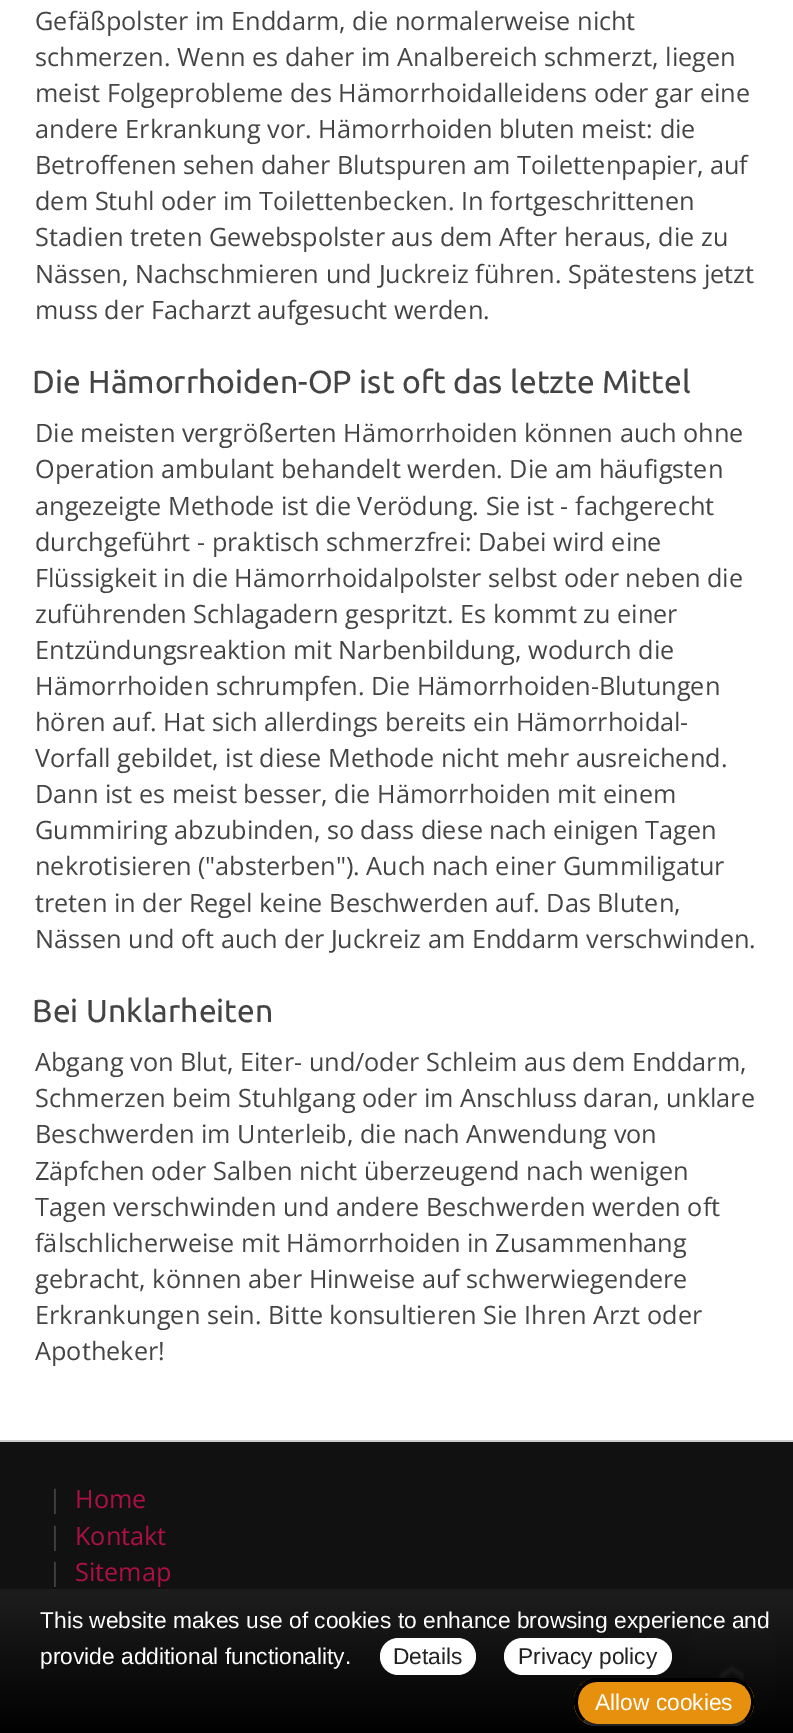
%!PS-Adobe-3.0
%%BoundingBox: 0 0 793 1733
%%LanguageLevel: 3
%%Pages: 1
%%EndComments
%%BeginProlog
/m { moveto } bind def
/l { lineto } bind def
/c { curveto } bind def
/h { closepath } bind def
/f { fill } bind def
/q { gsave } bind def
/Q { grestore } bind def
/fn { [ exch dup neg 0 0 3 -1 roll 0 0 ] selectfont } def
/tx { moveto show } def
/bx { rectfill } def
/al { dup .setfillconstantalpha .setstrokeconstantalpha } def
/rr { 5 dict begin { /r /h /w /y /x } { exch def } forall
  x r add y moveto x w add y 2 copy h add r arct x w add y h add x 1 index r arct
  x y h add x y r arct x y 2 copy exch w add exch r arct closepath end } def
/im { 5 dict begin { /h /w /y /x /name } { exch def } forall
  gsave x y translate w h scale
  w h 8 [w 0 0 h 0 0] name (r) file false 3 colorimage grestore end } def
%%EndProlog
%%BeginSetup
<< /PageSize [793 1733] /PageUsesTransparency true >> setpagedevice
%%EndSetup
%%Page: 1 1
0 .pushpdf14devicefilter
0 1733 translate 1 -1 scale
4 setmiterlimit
1 setgray
0 0 793 1733 bx
/OpenSans-Regular 25.25 fn
0.267 setgray
(Gefäßpolster im Enddarm, die normalerweise nicht) 35 30 tx
(schmerzen. Wenn es daher im Analbereich schmerzt, liegen) 35 66 tx
(meist Folgeprobleme des Hämorrhoidalleidens oder gar eine) 35 102 tx
(andere Erkrankung vor. Hämorrhoiden bluten meist: die) 35 138 tx
(Betroffenen sehen daher Blutspuren am Toilettenpapier, auf) 35 174 tx
(dem Stuhl oder im Toilettenbecken. In fortgeschrittenen) 35 210 tx
(Stadien treten Gewebspolster aus dem After heraus, die zu) 35 246 tx
(Nässen, Nachschmieren und Juckreiz führen. Spätestens jetzt) 35 283 tx
(muss der Facharzt aufgesucht werden.) 35 319 tx
/Ubuntu-Regular 31.9 fn
(Die Hämorrhoiden-OP ist oft das letzte Mittel) 32 393 tx
/OpenSans-Regular 25.25 fn
(Die meisten vergrößerten Hämorrhoiden können auch ohne) 35 442 tx
(Operation ambulant behandelt werden. Die am häufigsten) 35 478 tx
(angezeigte Methode ist die Verödung. Sie ist - fachgerecht) 35 515 tx
(durchgeführt - praktisch schmerzfrei: Dabei wird eine) 35 551 tx
(Flüssigkeit in die Hämorrhoidalpolster selbst oder neben die) 35 587 tx
(zuführenden Schlagadern gespritzt. Es kommt zu einer) 35 623 tx
(Entzündungsreaktion mit Narbenbildung, wodurch die) 35 659 tx
(Hämorrhoiden schrumpfen. Die Hämorrhoiden-Blutungen) 35 695 tx
(hören auf. Hat sich allerdings bereits ein Hämorrhoidal-) 35 731 tx
(Vorfall gebildet, ist diese Methode nicht mehr ausreichend.) 35 767 tx
(Dann ist es meist besser, die Hämorrhoiden mit einem) 35 803 tx
(Gummiring abzubinden, so dass diese nach einigen Tagen) 35 839 tx
(nekrotisieren \("absterben"\). Auch nach einer Gummiligatur) 35 875 tx
(treten in der Regel keine Beschwerden auf. Das Bluten,) 35 912 tx
(Nässen und oft auch der Juckreiz am Enddarm verschwinden.) 35 948 tx
/Ubuntu-Regular 31.9 fn
(Bei Unklarheiten) 32 1022 tx
/OpenSans-Regular 25.25 fn
(Abgang von Blut, Eiter- und/oder Schleim aus dem Enddarm,) 35 1071 tx
(Schmerzen beim Stuhlgang oder im Anschluss daran, unklare) 35 1107 tx
(Beschwerden im Unterleib, die nach Anwendung von) 35 1143 tx
(Zäpfchen oder Salben nicht überzeugend nach wenigen) 35 1180 tx
(Tagen verschwinden und andere Beschwerden werden oft) 35 1216 tx
(fälschlicherweise mit Hämorrhoiden in Zusammenhang) 35 1252 tx
(gebracht, können aber Hinweise auf schwerwiegendere) 35 1288 tx
(Erkrankungen sein. Bitte konsultieren Sie Ihren Arzt oder) 35 1324 tx
(Apotheker!) 35 1360 tx
0.067 setgray
0 1442 793 291 bx
0.8 setgray
0 1440 793 2 bx
0.267 setgray
(|) 48 1508 tx
0.686 0.063 0.267 setrgbcolor
(Home) 75 1508 tx
0.267 setgray
(|) 48 1545 tx
0.686 0.063 0.267 setrgbcolor
(Kontakt) 75 1545 tx
0.267 setgray
(|) 48 1581 tx
0.686 0.063 0.267 setrgbcolor
(Sitemap) 75 1581 tx
(image0.raw) 688 1627 89 90 im
0.95 al
q 0 1589 m 793 1589 l 793 1733 l 0 1733 l h clip newpath
<< /ShadingType 2 /ColorSpace /DeviceRGB /Coords [397 1589 397 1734] /Extend [true true] /Function << /FunctionType 2 /Domain [0 1] /C0 [0.118 0.118 0.118] /C1 [0 0 0] /N 1 >> >> shfill Q
/LiberationSans-Regular 22.75 fn
1 al
1 setgray
(This website makes use of cookies to enhance browsing experience and) 40 1628 tx
(provide additional functionality.) 40 1664 tx
380 1638 96 37 18.5 rr f
0.133 setgray
(Details) 393 1664 tx
1 setgray
504 1638 168 37 18.5 rr f
0.133 setgray
(Privacy policy) 518 1664 tx
0.902 0.565 0.055 setrgbcolor
574 1678 180 48 23 rr f
0 setgray
597 1682 m 591 1682 587 1684 583 1688 c 581 1685 l 584 1681 588 1679 593 1678 c 735 1678 l 740 1679 744 1681 748 1685 c 745 1687 l 742 1684 737 1682 732 1682 c h f
747.5 1685 m 757 1695 756 1712.5 745.5 1721 c 743 1720 l 752.5 1712 754.5 1696 745 1687.5 c h f
0.133 setgray
592 1726 m 589 1725 586 1723 583 1721 c 586 1720 l 589 1722 593 1724 597 1724 c 732 1724 l 736 1724 740 1722 743 1720 c 745 1721 l 743 1723 740 1725 736 1726 c h f
0 setgray
574 1701 m 574 1709 576.5 1716 583 1721 c 585.5 1719.5 l 576.5 1712.5 575 1696 583.5 1687.5 c 580.5 1685 l 576.5 1689 574 1694.5 574 1701 c h f
1 setgray
(Allow cookies) 595 1710 tx
.poppdf14devicefilter showpage
%%EOF
